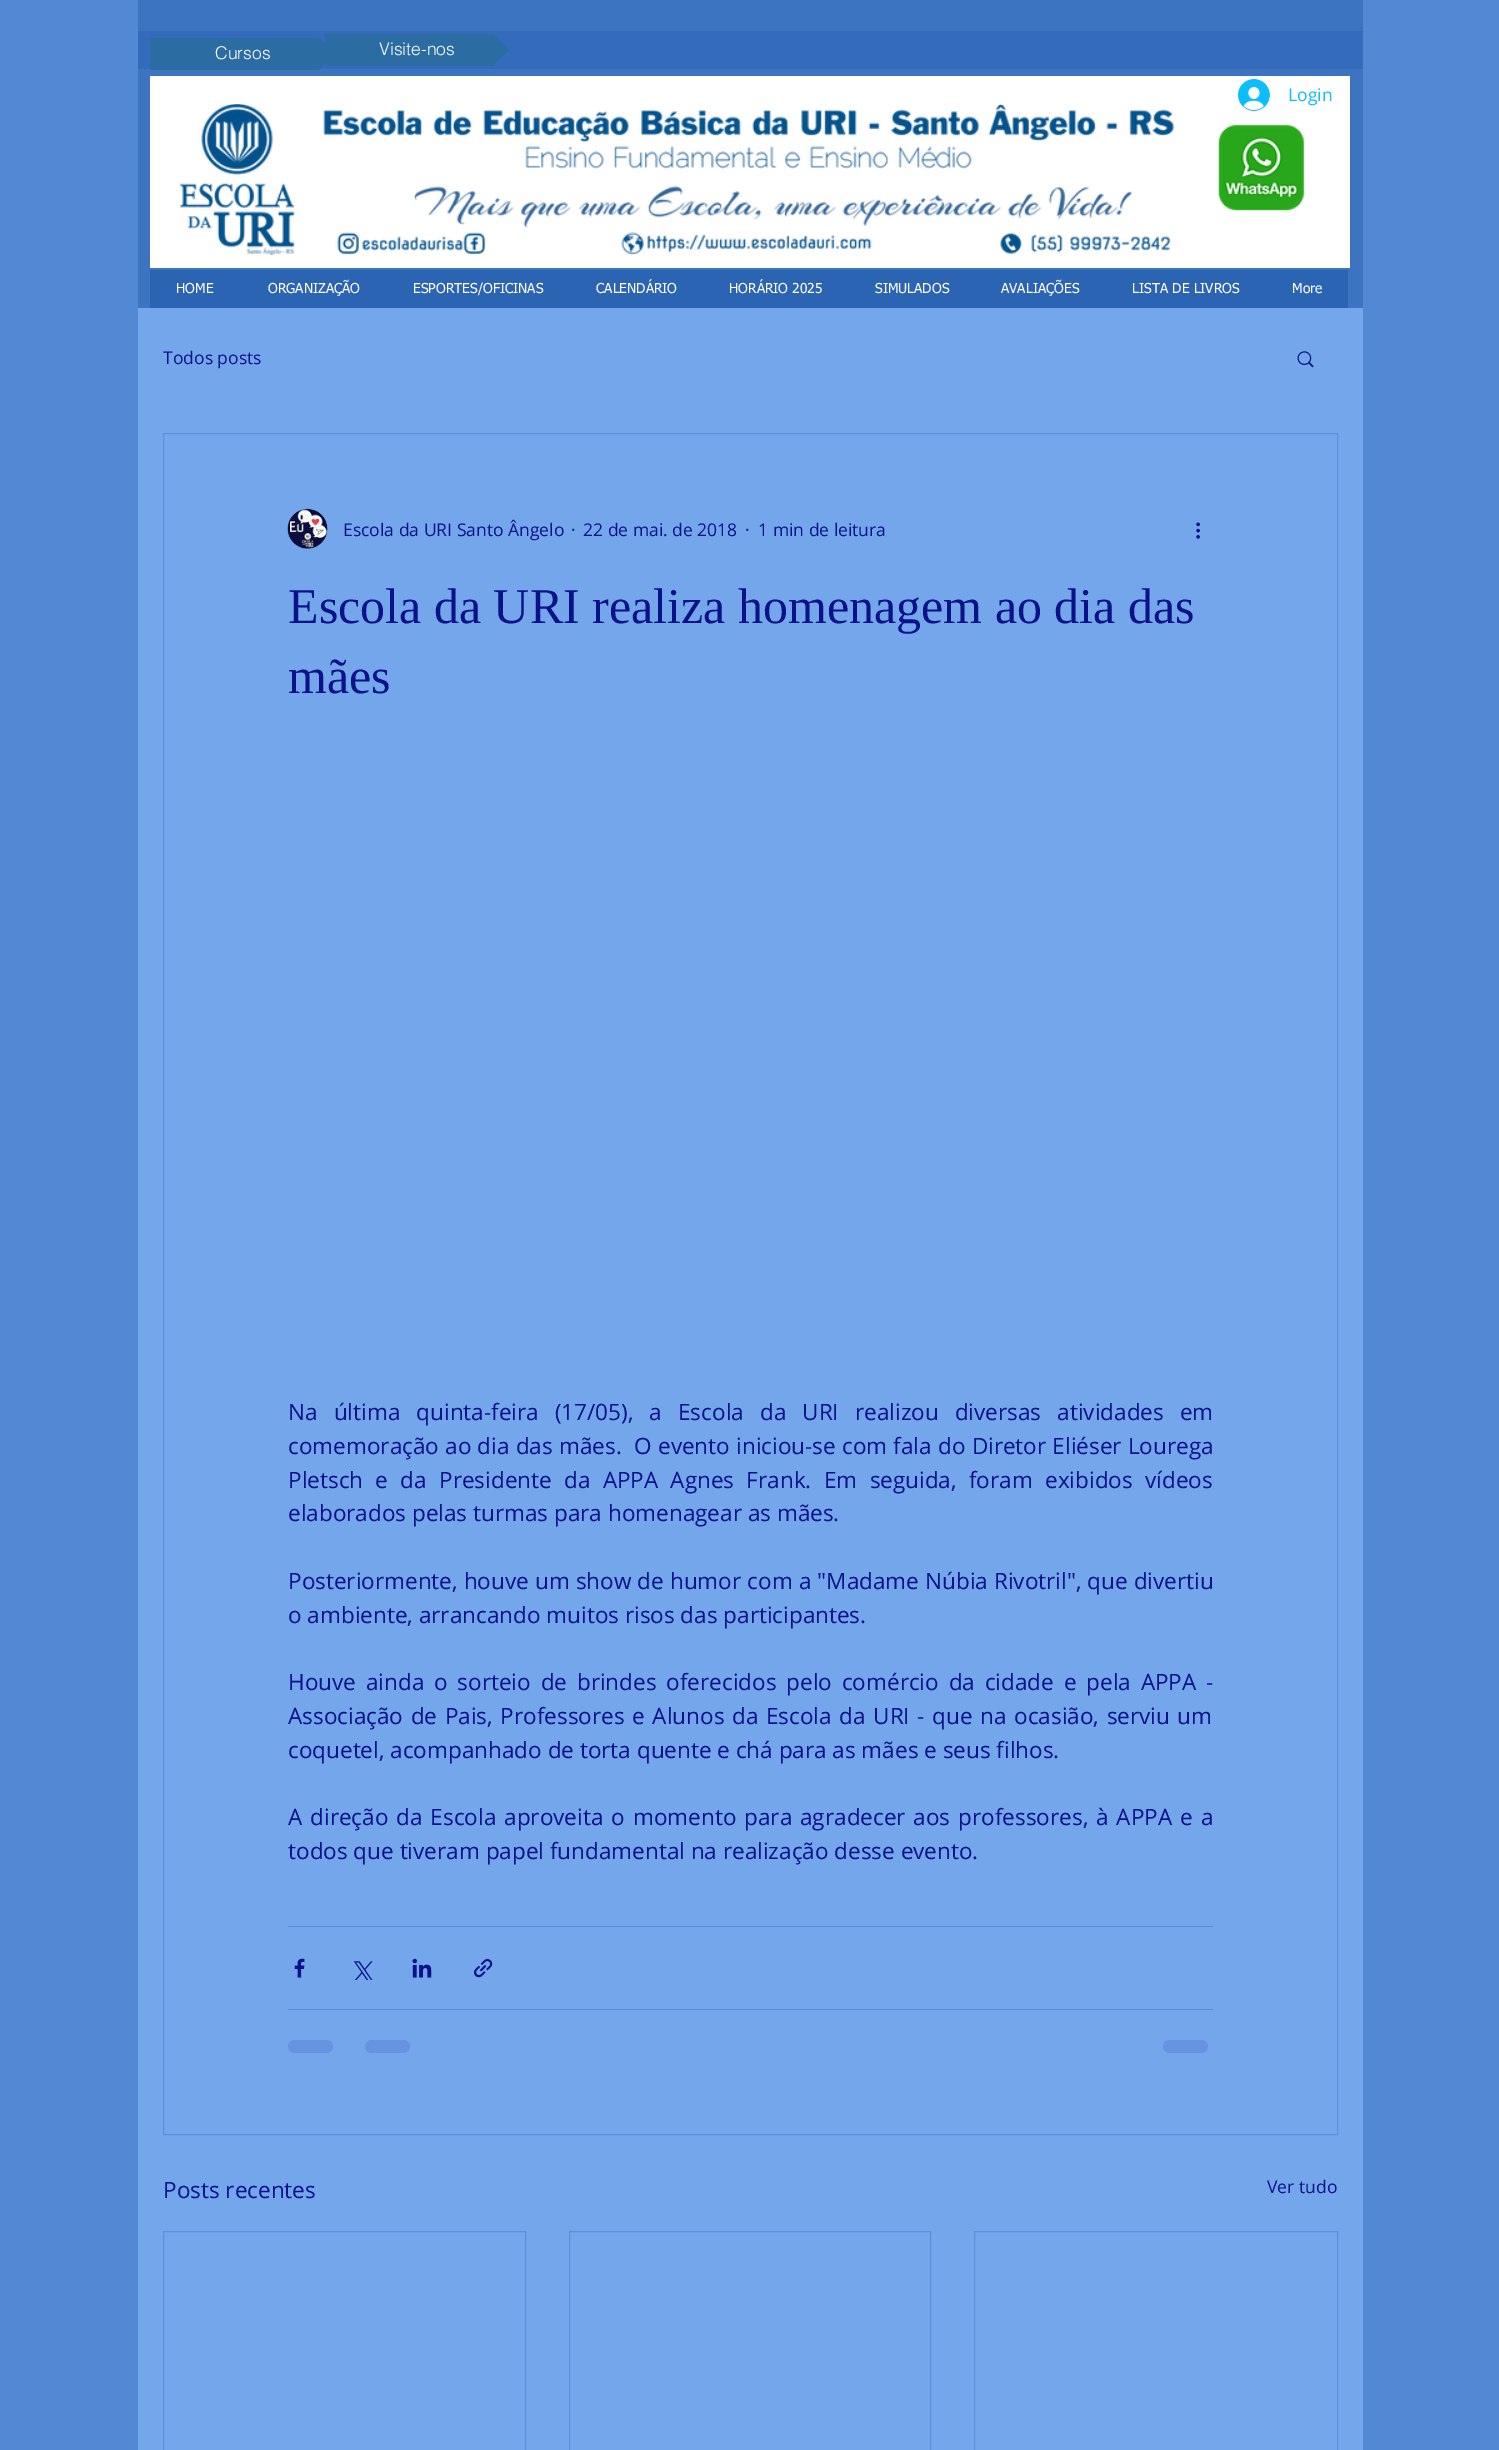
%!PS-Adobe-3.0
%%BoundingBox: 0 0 1499 2450
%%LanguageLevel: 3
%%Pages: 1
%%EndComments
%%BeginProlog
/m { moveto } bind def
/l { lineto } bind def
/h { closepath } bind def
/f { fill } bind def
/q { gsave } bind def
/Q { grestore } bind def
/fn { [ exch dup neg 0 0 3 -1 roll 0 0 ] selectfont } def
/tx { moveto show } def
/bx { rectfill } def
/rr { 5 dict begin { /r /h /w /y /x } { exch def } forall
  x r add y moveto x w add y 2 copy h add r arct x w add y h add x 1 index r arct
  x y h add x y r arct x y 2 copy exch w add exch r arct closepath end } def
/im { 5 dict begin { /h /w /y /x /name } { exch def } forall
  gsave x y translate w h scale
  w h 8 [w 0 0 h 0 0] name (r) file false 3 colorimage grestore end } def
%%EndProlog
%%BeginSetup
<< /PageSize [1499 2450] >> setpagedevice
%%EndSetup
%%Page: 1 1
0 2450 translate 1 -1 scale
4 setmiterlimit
0.322 0.533 0.831 setrgbcolor
0 0 1499 2450 bx
0.239 0.455 0.761 setrgbcolor
138 0 1225 308 bx
0.204 0.42 0.729 setrgbcolor
138 31 1225 38 bx
0.169 0.424 0.639 setrgbcolor
150 38 122 32 bx
q
150 38 185 32 rectclip
335 54 m 272 54 l 272 -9 l h 272 54 m 335 54 l 272 116 l h f
Q
/helvetica-Light 17.5 fn
1 setgray
(Cursos) 215 59 tx
0.169 0.424 0.639 setrgbcolor
325 34 121 32 bx
q
325 34 184 32 rectclip
509 50 m 446 50 l 446 -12 l h 446 50 m 509 50 l 446 112 l h f
Q
1 setgray
(Visite-nos) 379 55 tx
150 76 1200 192 bx
(image0.raw) 180 104 994 151 im
(image1.raw) 1218 124 87 88 im
(image2.raw) 1238 79 32 32 im
/OpenSans-Regular 17.5 fn
0.039 0.745 1 setrgbcolor
(Login) 1288 101 tx
0.173 0.392 0.706 setrgbcolor
150 270 1198 38 bx
/tahoma-Regular 13.75 fn
1 setgray
(HOME) 176 293 tx
(ORGANIZAÇÃO) 268 293 tx
(ESPORTES/OFICINAS) 413 293 tx
(CALENDÁRIO) 596 293 tx
(HORÁRIO 2025) 729 293 tx
(SIMULADOS) 875 293 tx
(AVALIAÇÕES) 1001 293 tx
(LISTA DE LIVROS) 1132 293 tx
(More) 1292 293 tx
0.455 0.651 0.925 setrgbcolor
138 308 1225 2142 bx
/OpenSans-Regular 17.5 fn
0.043 0.067 0.537 setrgbcolor
(Todos posts) 163 364 tx
(image3.raw) 1297 351 17 17 im
0.357 0.565 0.855 setrgbcolor
163.5 433.5 1174 1701 rectstroke
(image4.raw) 287 508 41 41 im
0.043 0.067 0.537 setrgbcolor
(Escola da URI Santo Ângelo) 343 536 tx
(·) 571 536 tx
(22 de mai. de 2018) 583 536 tx
(·) 745 536 tx
(1 min de leitura) 758 536 tx
(image5.raw) 1196 522 4 17 im
/LiberationSerif-Regular 50 fn
(Escola da URI realiza homenagem ao dia das) 288 623 tx
(mães) 288 693 tx
/OpenSans-Regular 22.5 fn
288 1420 m 10.25 0 32 (Na última quinta-feira \(17/05\), a Escola da URI realizou diversas atividades em) widthshow
288 1454 m 0.4 0 32 (comemoração ao dia das mães.  O evento iniciou-se com fala do Diretor Eliéser Lourega) widthshow
288 1488 m 6.5 0 32 (Pletsch e da Presidente da APPA Agnes Frank. Em seguida, foram exibidos vídeos) widthshow
(elaborados pelas turmas para homenagear as mães.) 288 1521 tx
288 1589 m 0.25 0 32 (Posteriormente, houve um show de humor com a "Madame Núbia Rivotril", que divertiu) widthshow
(o ambiente, arrancando muitos risos das participantes.) 288 1623 tx
288 1690 m 4 0 32 (Houve ainda o sorteio de brindes oferecidos pelo comércio da cidade e pela APPA -) widthshow
288 1724 m 1.8 0 32 (Associação de Pais, Professores e Alunos da Escola da URI - que na ocasião, serviu um) widthshow
(coquetel, acompanhado de torta quente e chá para as mães e seus filhos.) 288 1758 tx
288 1825 m 2.1 0 32 (A direção da Escola aproveita o momento para agradecer aos professores, à APPA e a) widthshow
(todos que tiveram papel fundamental na realização desse evento.) 288 1859 tx
0.373 0.533 0.847 setrgbcolor
288 1926 925 1 bx
(image6.raw) 294 1958 11 20 im
(image7.raw) 353 1961 20 19 im
(image8.raw) 412 1958 20 20 im
(image9.raw) 474 1959 19 19 im
288 2009 925 1 bx
0.404 0.58 0.878 setrgbcolor
288 2040 45 13 6.5 rr f
365 2040 45 13 6.5 rr f
1163 2040 45 13 6.5 rr f
0.043 0.067 0.537 setrgbcolor
(Posts recentes) 163 2198 tx
/OpenSans-Regular 17.5 fn
(Ver tudo) 1267 2193 tx
0.357 0.565 0.855 setrgbcolor
163.5 2231.5 362 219 rectstroke
569.5 2231.5 361 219 rectstroke
974.5 2231.5 363 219 rectstroke
showpage
%%EOF
